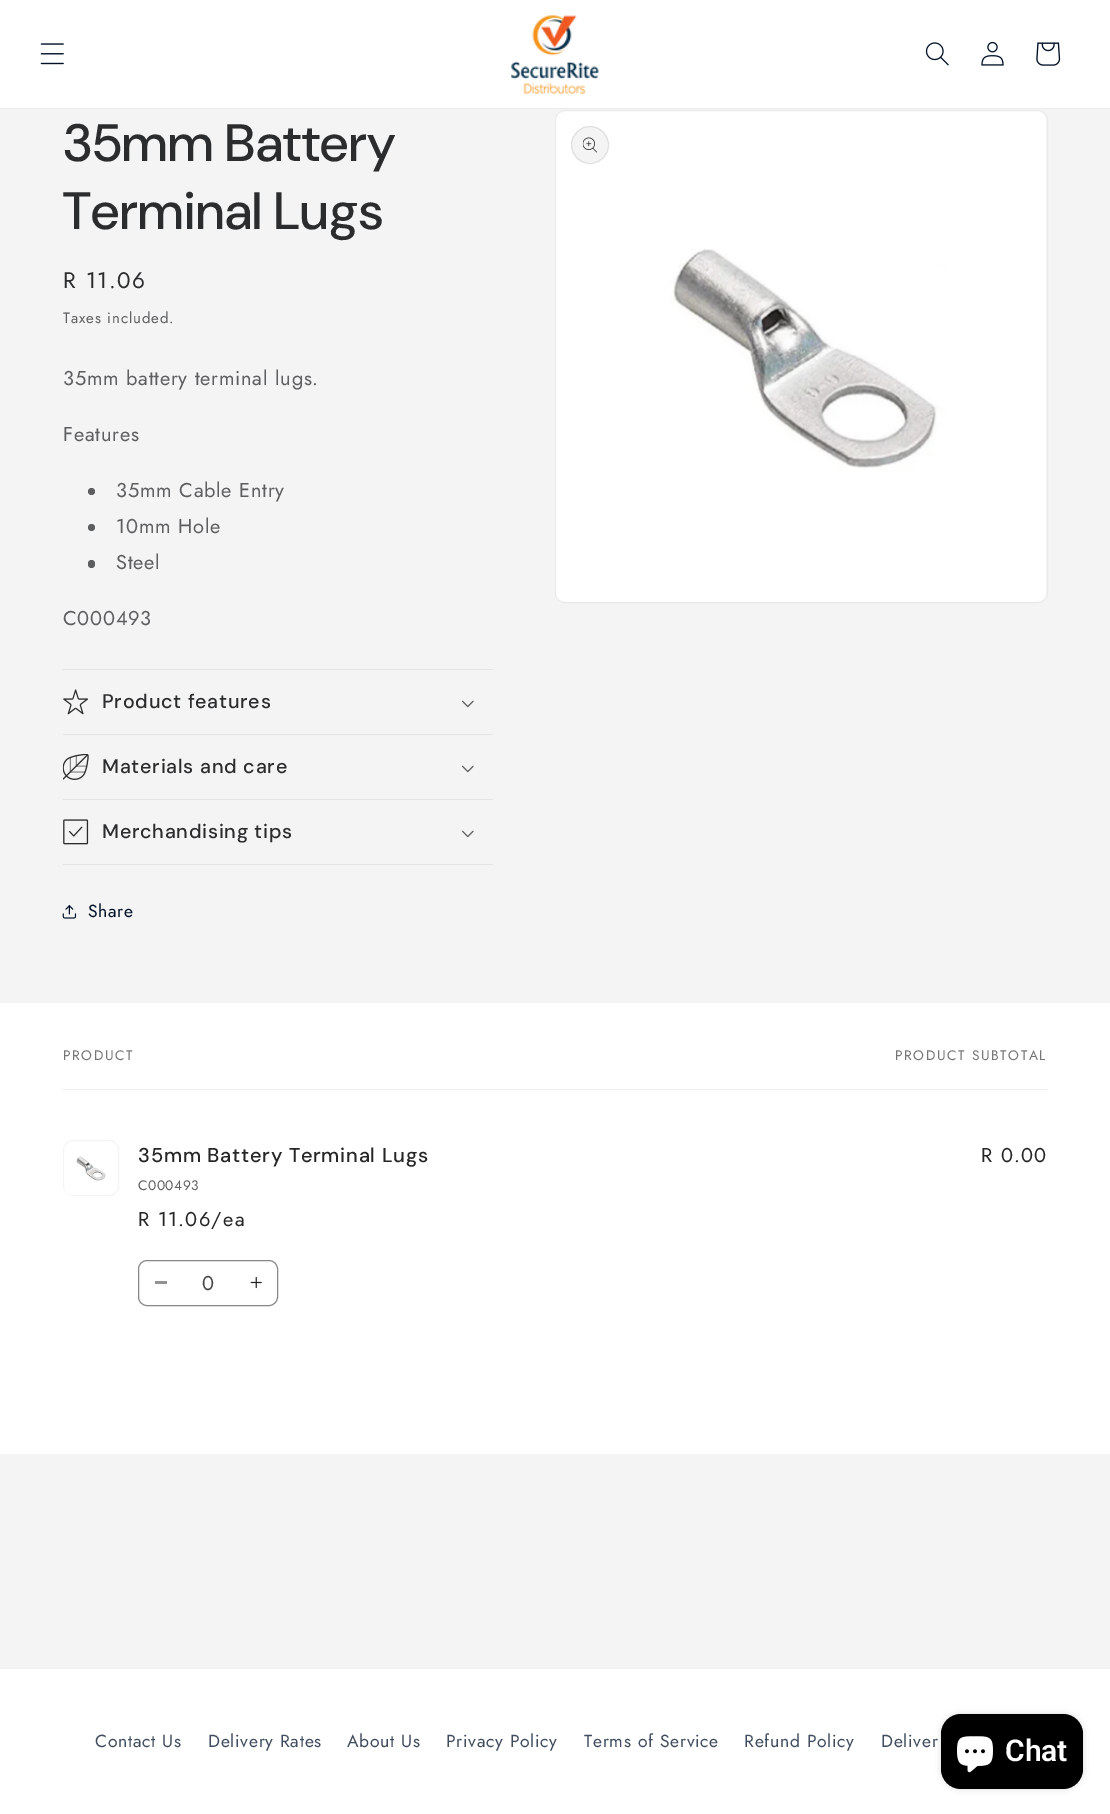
%!PS-Adobe-3.0
%%BoundingBox: 0 0 1110 1814
%%LanguageLevel: 3
%%Pages: 1
%%EndComments
%%BeginProlog
/m { moveto } bind def
/f { fill } bind def
/S { stroke } bind def
/fn { [ exch dup neg 0 0 3 -1 roll 0 0 ] selectfont } def
/tx { moveto show } def
/bx { rectfill } def
/al { dup .setfillconstantalpha .setstrokeconstantalpha } def
/ci { newpath 0 360 arc closepath } def
/rr { 5 dict begin { /r /h /w /y /x } { exch def } forall
  x r add y moveto x w add y 2 copy h add r arct x w add y h add x 1 index r arct
  x y h add x y r arct x y 2 copy exch w add exch r arct closepath end } def
/sh { 12 dict begin { /a /b /q /h /w /y /x } { exch def } forall gsave /was 0 def
  9 -2 -9 { dup b mul 4 div /e exch def 1 sub .425 mul 2.718 exch exp 1 add a .99 .min exch div /now exch def
    1 1 now sub 1 was sub div sub al /was now def
    w h .min e 2 mul add 0 gt { x e sub y e sub w e 2 mul add h e 2 mul add
      q e add b .6 mul add w h .min 2 div e add .min 0 .max rr fill } if } for grestore end } def
/im { 5 dict begin { /h /w /y /x /name } { exch def } forall
  gsave x y translate w h scale
  w h 8 [w 0 0 h 0 0] name (r) file false 3 colorimage grestore end } def
%%EndProlog
%%BeginSetup
<< /PageSize [1110 1814] /PageUsesTransparency true >> setpagedevice
%%EndSetup
%%Page: 1 1
0 .pushpdf14devicefilter
0 1814 translate 1 -1 scale
4 setmiterlimit
0.957 setgray
0 0 1110 1814 bx
1 setgray
0 0 1110 108 bx
0.922 0.925 0.933 setrgbcolor
0 108 1110 1 bx
(image0.raw) 40 43 24 22 im
(image1.raw) 511 15 88 79 im
(image2.raw) 925 42 24 24 im
(image3.raw) 981 41 23 25 im
(image4.raw) 1036 42 25 24 im
/DMSans-Medium 52.5 fn
0.169 0.173 0.176 setrgbcolor
63 161 m 0.75 0 (35mm Battery) ashow
63 229 m 0.75 0 (Terminal Lugs) ashow
/Jost-Regular 22.5 fn
63 288 m 1.6 0 (R 11.06) ashow
/Jost-Regular 15 fn
0.365 0.369 0.373 setrgbcolor
63 323 m 0.9 0 (Taxes included.) ashow
/Jost-Regular 20 fn
63 385 m 0.75 0 (35mm battery terminal lugs.) ashow
63 441 m 0.75 0 (Features) ashow
91.5 491.5 3.5 ci f
116 497 m 0.75 0 (35mm Cable Entry) ashow
91.5 527.5 3.5 ci f
116 533 m 0.75 0 (10mm Hole) ashow
88 560 7 8 3.5 rr f
116 569 m 0.75 0 (Steel) ashow
63 625 m 0.75 0 (C000493) ashow
0.894 setgray
63 669 430 1 bx
63 734 430 1 bx
(image5.raw) 63 689 25 26 im
/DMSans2-Medium 19.75 fn
0.169 0.173 0.176 setrgbcolor
102 708 m 0.75 0 (Product features) ashow
(image6.raw) 462 700 12 8 im
0.894 setgray
63 799 430 1 bx
(image7.raw) 63 754 26 26 im
0.169 0.173 0.176 setrgbcolor
102 773 m 0.75 0 (Materials and care) ashow
(image6.raw) 462 765 12 8 im
0.894 setgray
63 864 430 1 bx
(image8.raw) 63 819 26 26 im
0.169 0.173 0.176 setrgbcolor
102 838 m 0.75 0 (Merchandising tips) ashow
(image6.raw) 462 830 12 8 im
(image9.raw) 62 905 15 14 im
/Jost-Regular 17.5 fn
0 0.067 0.157 setrgbcolor
88 917 m 0.75 0 (Share) ashow
0.918 setgray
555.5 110.5 492 492 9.5 rr S
(image10.raw) 556 111 490 491 im
0.957 setgray
590 145 19 ci f
0.1 al
0.169 0.173 0.176 setrgbcolor
590 145 18.5 ci S
1 al
(image11.raw) 583 137 14 16 im
1 setgray
0 1003 1110 451 bx
0.933 setgray
63 1089 985 1 bx
/Jost-Regular 13.75 fn
0.459 setgray
63 1060 m 1.6 0 (PRODUCT) ashow
895 1060 m 1.6 0 (PRODUCT SUBTOTAL) ashow
0.957 setgray
63.5 1140.5 55 55 9.5 rr S
(image12.raw) 64 1156 42 39 im
/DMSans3-Medium 20 fn
0.149 setgray
138 1162 m 0.75 0 (35mm Battery Terminal Lugs) ashow
/Jost-Regular 13.75 fn
0.365 0.369 0.373 setrgbcolor
138 1190 m 0.5 0 (C000493) ashow
/Jost-Regular 20 fn
0.149 setgray
138 1226 m 1.25 0 (R 11.06/ea) ashow
981 1162 m 1.25 0 (R 0.00) ashow
0.576 setgray
155 1281 12 3 bx
(image13.raw) 250 1276 12 13 im
0.533 setgray
138.5 1260.5 139 45 8.5 rr S
0.278 setgray
(0) 202 1290 tx
1 setgray
0 1669 1110 145 bx
/Jost-Regular 17.5 fn
0.251 0.302 0.369 setrgbcolor
95 1747 m 0.75 0 (Contact Us) ashow
208 1747 m 0.75 0 (Delivery Rates) ashow
347 1747 m 0.75 0 (About Us) ashow
446 1747 m 0.75 0 (Privacy Policy) ashow
584 1747 m 0.75 0 (Terms of Service) ashow
744 1747 m 0.75 0 (Refund Policy) ashow
881 1747 m 0.75 0 (Deliver) ashow
0 setgray
941 1714 142 75 20 3 0.15 sh
941 1714 142 75 20 rr f
(image14.raw) 957 1736 36 37 im
/Roboto-SemiBold 30 fn
1 setgray
(Chat) 1005 1761 tx
.poppdf14devicefilter showpage
%%EOF
